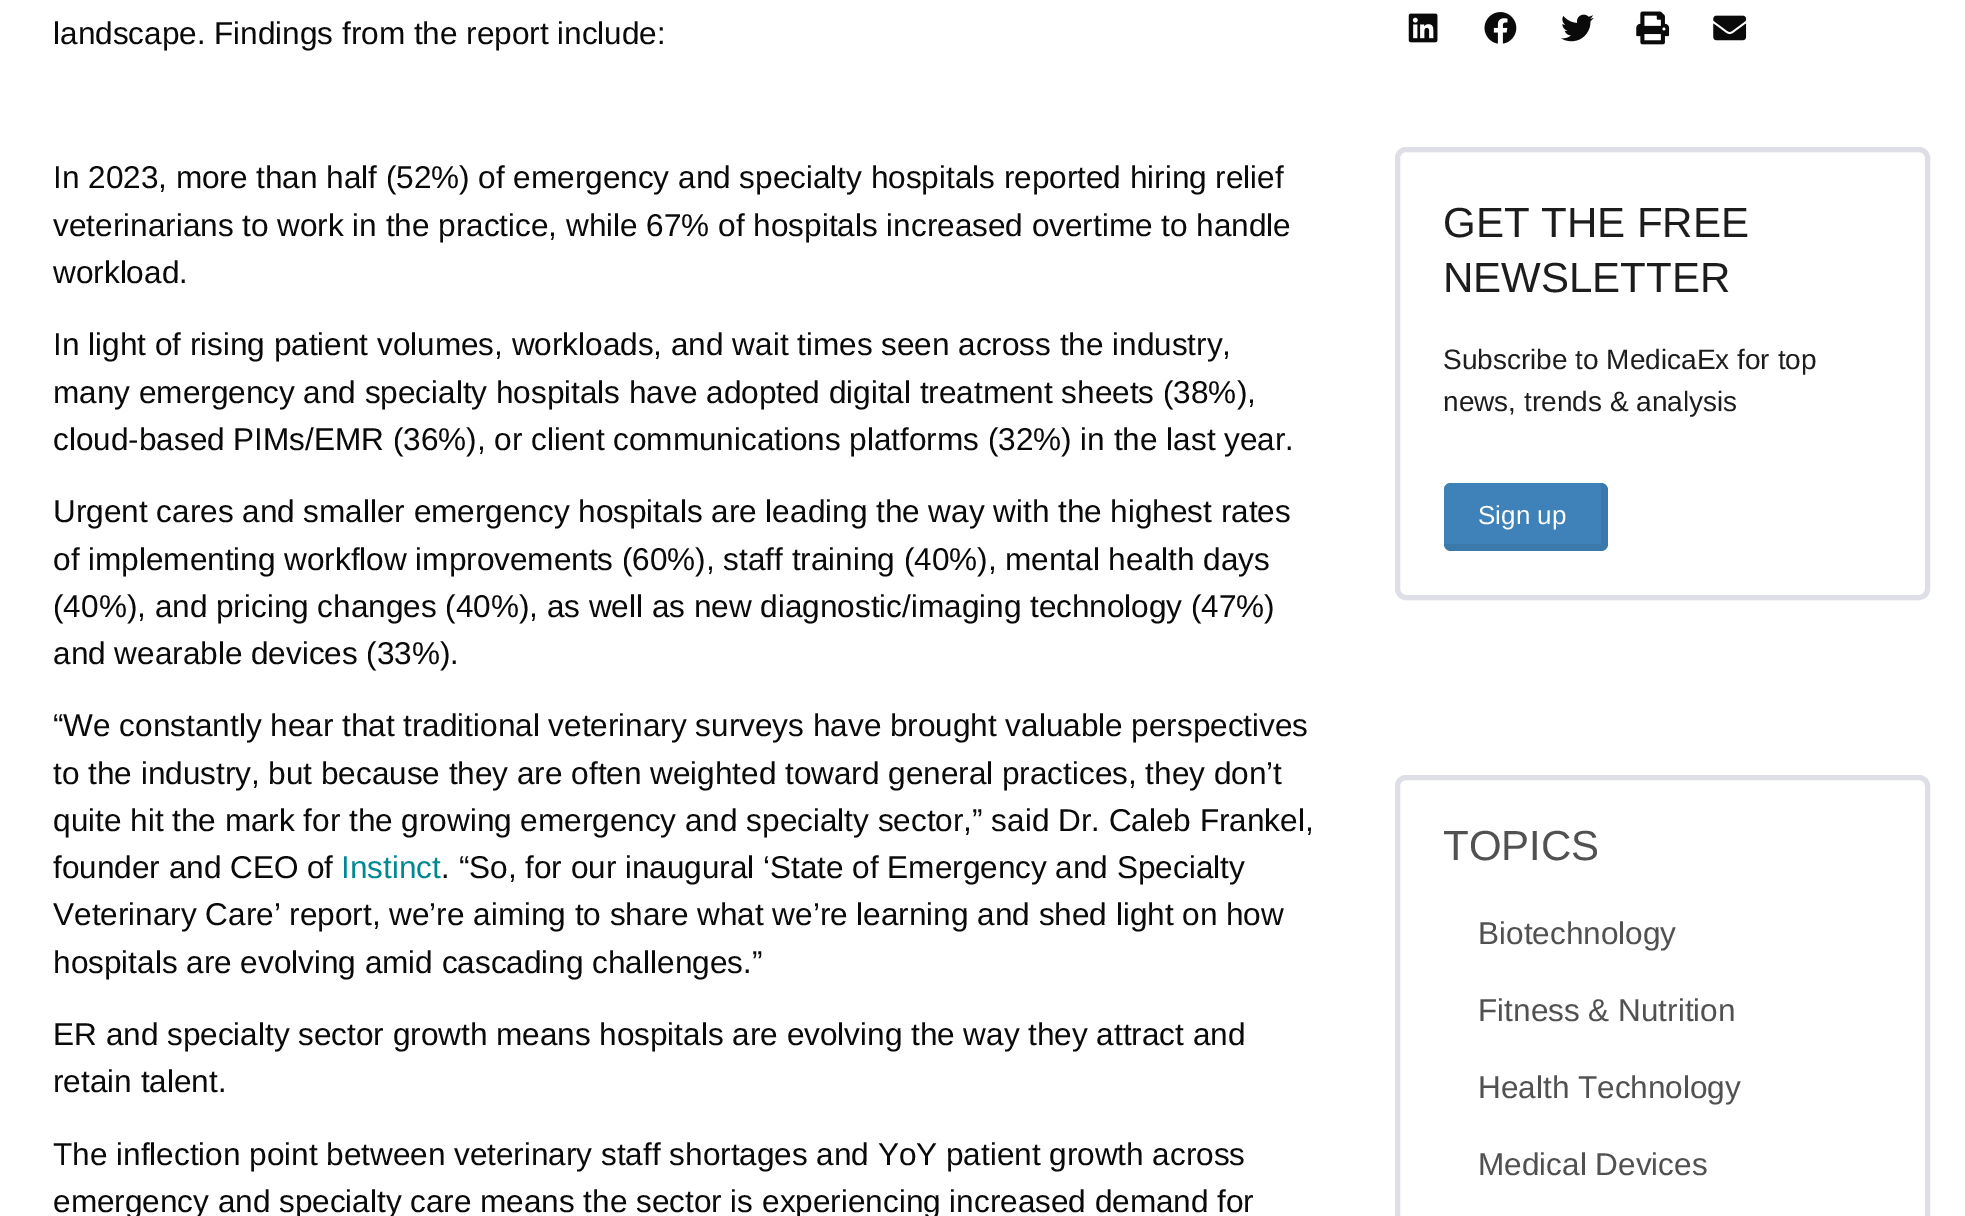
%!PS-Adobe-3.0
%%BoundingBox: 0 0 1965 1216
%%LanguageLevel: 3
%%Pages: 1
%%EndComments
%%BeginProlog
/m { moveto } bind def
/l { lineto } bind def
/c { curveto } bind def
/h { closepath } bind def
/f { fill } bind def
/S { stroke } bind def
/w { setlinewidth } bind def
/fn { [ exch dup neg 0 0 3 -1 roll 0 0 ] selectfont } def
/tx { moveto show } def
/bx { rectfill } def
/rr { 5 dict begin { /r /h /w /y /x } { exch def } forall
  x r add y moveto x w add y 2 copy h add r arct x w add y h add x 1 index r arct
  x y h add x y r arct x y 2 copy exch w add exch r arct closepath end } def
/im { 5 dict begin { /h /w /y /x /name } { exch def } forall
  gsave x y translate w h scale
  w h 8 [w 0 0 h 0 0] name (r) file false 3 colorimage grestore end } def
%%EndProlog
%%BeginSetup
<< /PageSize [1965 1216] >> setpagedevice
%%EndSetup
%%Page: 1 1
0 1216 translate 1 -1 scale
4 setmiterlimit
1 setgray
0 0 1965 1216 bx
/LiberationSans-Regular 31.5 fn
0.039 setgray
(landscape. Findings from the report include:) 53 44 tx
(In 2023, more than half \(52%\) of emergency and specialty hospitals reported hiring relief) 53 188 tx
(veterinarians to work in the practice, while 67% of hospitals increased overtime to handle) 53 236 tx
(workload.) 53 283 tx
(In light of rising patient volumes, workloads, and wait times seen across the industry,) 53 355 tx
(many emergency and specialty hospitals have adopted digital treatment sheets \(38%\),) 53 403 tx
(cloud-based PIMs/EMR \(36%\), or client communications platforms \(32%\) in the last year.) 53 450 tx
(Urgent cares and smaller emergency hospitals are leading the way with the highest rates) 53 522 tx
(of implementing workflow improvements \(60%\), staff training \(40%\), mental health days) 53 570 tx
(\(40%\), and pricing changes \(40%\), as well as new diagnostic/imaging technology \(47%\)) 53 617 tx
(and wearable devices \(33%\).) 53 664 tx
(“We constantly hear that traditional veterinary surveys have brought valuable perspectives) 53 736 tx
(to the industry, but because they are often weighted toward general practices, they don’t) 53 784 tx
(quite hit the mark for the growing emergency and specialty sector,” said Dr. Caleb Frankel,) 53 831 tx
(founder and CEO of) 53 878 tx
0 0.533 0.573 setrgbcolor
(Instinct) 341 878 tx
0.039 setgray
(. “So, for our inaugural ‘State of Emergency and Specialty) 441 878 tx
(Veterinary Care’ report, we’re aiming to share what we’re learning and shed light on how) 53 925 tx
(hospitals are evolving amid cascading challenges.”) 53 973 tx
(ER and specialty sector growth means hospitals are evolving the way they attract and) 53 1045 tx
(retain talent.) 53 1092 tx
(The inflection point between veterinary staff shortages and YoY patient growth across) 53 1165 tx
(emergency and specialty care means the sector is experiencing increased demand for) 53 1212 tx
(image0.raw) 1408 13 30 30 im
(image1.raw) 1484 12 33 32 im
(image2.raw) 1561 14 33 28 im
(image3.raw) 1636 11 34 34 im
(image4.raw) 1713 15 34 26 im
0.867 0.871 0.902 setrgbcolor
5 w
1397.5 149.5 530 448 8.5 rr S
/LiberationSans-Regular 42 fn
0.114 setgray
(GET THE FREE) 1443 237 tx
(NEWSLETTER) 1443 292 tx
/LiberationSans-Regular 28 fn
(Subscribe to MedicaEx for top) 1443 369 tx
(news, trends & analysis) 1443 411 tx
0.243 0.51 0.725 setrgbcolor
1451 483 m 1601 483 l 1601 544 l 1444 544 l 1444 490 l 1444 486 1447 483 1451 483 c h f
0.231 0.475 0.667 setrgbcolor
1451 483 m 1601 483 l 1605 483 1608 486 1608 490 c 1608 544 l 1608 548 1605 551 1601 551 c 1451 551 l 1447 551 1444 548 1444 544 c 1444 490 l 1444 486 1447 483 1451 483 c h 1451 483 m 1601 483 l 1601 544 l 1444 544 l 1444 490 l 1444 486 1447 483 1451 483 c h eofill
/LiberationSans-Regular 26 fn
1 setgray
(Sign up) 1478 524 tx
0.867 0.871 0.902 setrgbcolor
1397.5 777.5 530 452 8.5 rr S
/LiberationSans-Regular 42 fn
0.318 setgray
(TOPICS) 1443 860 tx
/LiberationSans-Regular 31.5 fn
(Biotechnology) 1478 944 tx
(Fitness & Nutrition) 1478 1021 tx
(Health Technology) 1478 1098 tx
(Medical Devices) 1478 1175 tx
showpage
%%EOF
